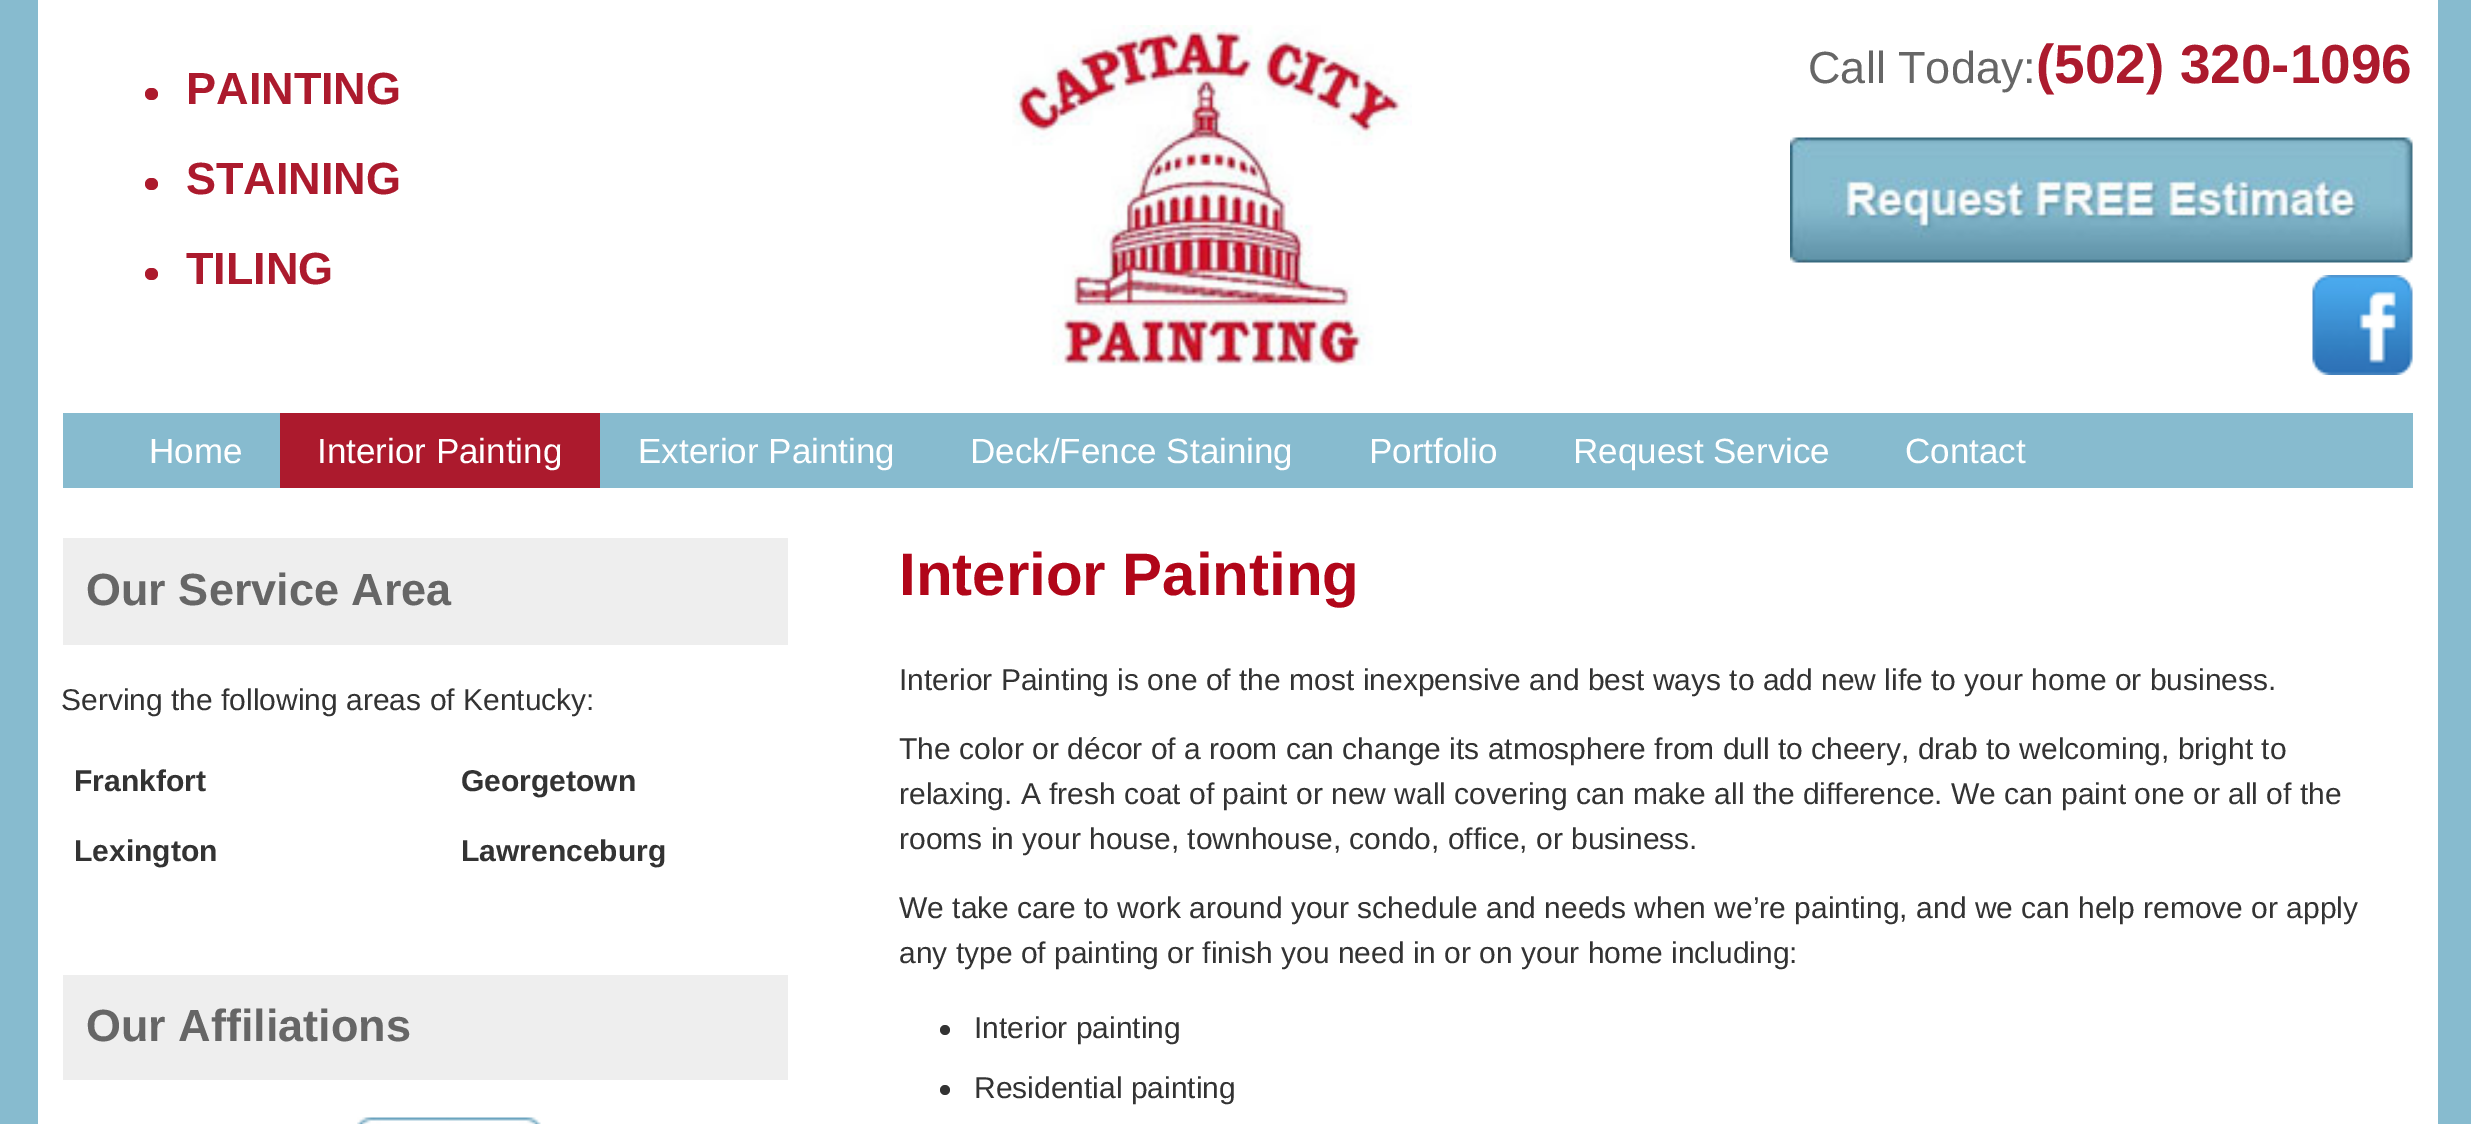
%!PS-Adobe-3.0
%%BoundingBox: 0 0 2471 1124
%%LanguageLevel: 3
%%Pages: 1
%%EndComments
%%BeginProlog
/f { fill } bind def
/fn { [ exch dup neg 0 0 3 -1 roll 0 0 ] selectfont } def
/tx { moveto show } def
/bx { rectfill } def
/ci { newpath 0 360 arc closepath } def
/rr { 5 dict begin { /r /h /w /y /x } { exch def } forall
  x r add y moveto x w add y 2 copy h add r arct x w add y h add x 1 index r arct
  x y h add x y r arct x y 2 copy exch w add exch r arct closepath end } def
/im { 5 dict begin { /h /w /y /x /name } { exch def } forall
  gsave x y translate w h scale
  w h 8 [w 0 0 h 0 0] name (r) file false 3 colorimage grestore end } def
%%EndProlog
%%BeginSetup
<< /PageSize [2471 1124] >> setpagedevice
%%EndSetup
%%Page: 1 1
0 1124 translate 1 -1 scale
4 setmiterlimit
0.529 0.733 0.812 setrgbcolor
0 0 2471 1124 bx
1 setgray
38 0 2400 1124 bx
0.675 0.102 0.176 setrgbcolor
145 88 13 12 6 rr f
/LiberationSans-Bold 45 fn
(PAINTING) 186 104 tx
145 178 13 12 6 rr f
(STAINING) 186 194 tx
145 268 13 12 6 rr f
(TILING) 186 284 tx
(image0.raw) 1012 25 400 341 im
/LiberationSans-Regular 45 fn
0.4 setgray
(Call Today:) 1808 83 tx
/LiberationSans-Bold 55 fn
0.675 0.102 0.176 setrgbcolor
(\(502\) 320-1096) 2036 83 tx
(image1.raw) 1790 137 623 126 im
(image2.raw) 2312 275 101 100 im
0.529 0.733 0.812 setrgbcolor
63 413 2350 75 bx
/LiberationSans-Regular 35 fn
1 setgray
(Home) 149 463 tx
0.675 0.102 0.176 setrgbcolor
280 413 320 75 bx
1 setgray
(Interior Painting) 317 463 tx
(Exterior Painting) 638 463 tx
(Deck/Fence Staining) 970 463 tx
(Portfolio) 1369 463 tx
(Request Service) 1573 463 tx
(Contact) 1905 463 tx
0.933 setgray
63 538 725 107 bx
/LiberationSans-Bold 45 fn
0.4 setgray
(Our Service Area) 86 605 tx
/LiberationSans-Regular 30 fn
0.2 setgray
(Serving the following areas of Kentucky:) 61 710 tx
/LiberationSans-Bold 30 fn
(Frankfort) 74 791 tx
(Georgetown) 461 791 tx
(Lexington) 74 861 tx
(Lawrenceburg) 461 861 tx
0.933 setgray
63 975 725 105 bx
/LiberationSans-Bold 45 fn
0.4 setgray
(Our Affiliations) 86 1041 tx
(image3.raw) 357 1117 184 7 im
/LiberationSans-Bold 60 fn
0.694 0.024 0.098 setrgbcolor
(Interior Painting) 899 595 tx
/LiberationSans-Regular 30 fn
0.2 setgray
(Interior Painting is one of the most inexpensive and best ways to add new life to your home or business.) 899 690 tx
(The color or décor of a room can change its atmosphere from dull to cheery, drab to welcoming, bright to) 899 759 tx
(relaxing. A fresh coat of paint or new wall covering can make all the difference. We can paint one or all of the) 899 804 tx
(rooms in your house, townhouse, condo, office, or business.) 899 849 tx
(We take care to work around your schedule and needs when we’re painting, and we can help remove or apply) 899 918 tx
(any type of painting or finish you need in or on your home including:) 899 963 tx
945 1030 5 ci f
(Interior painting) 974 1038 tx
945 1090 5 ci f
(Residential painting) 974 1098 tx
showpage
%%EOF
